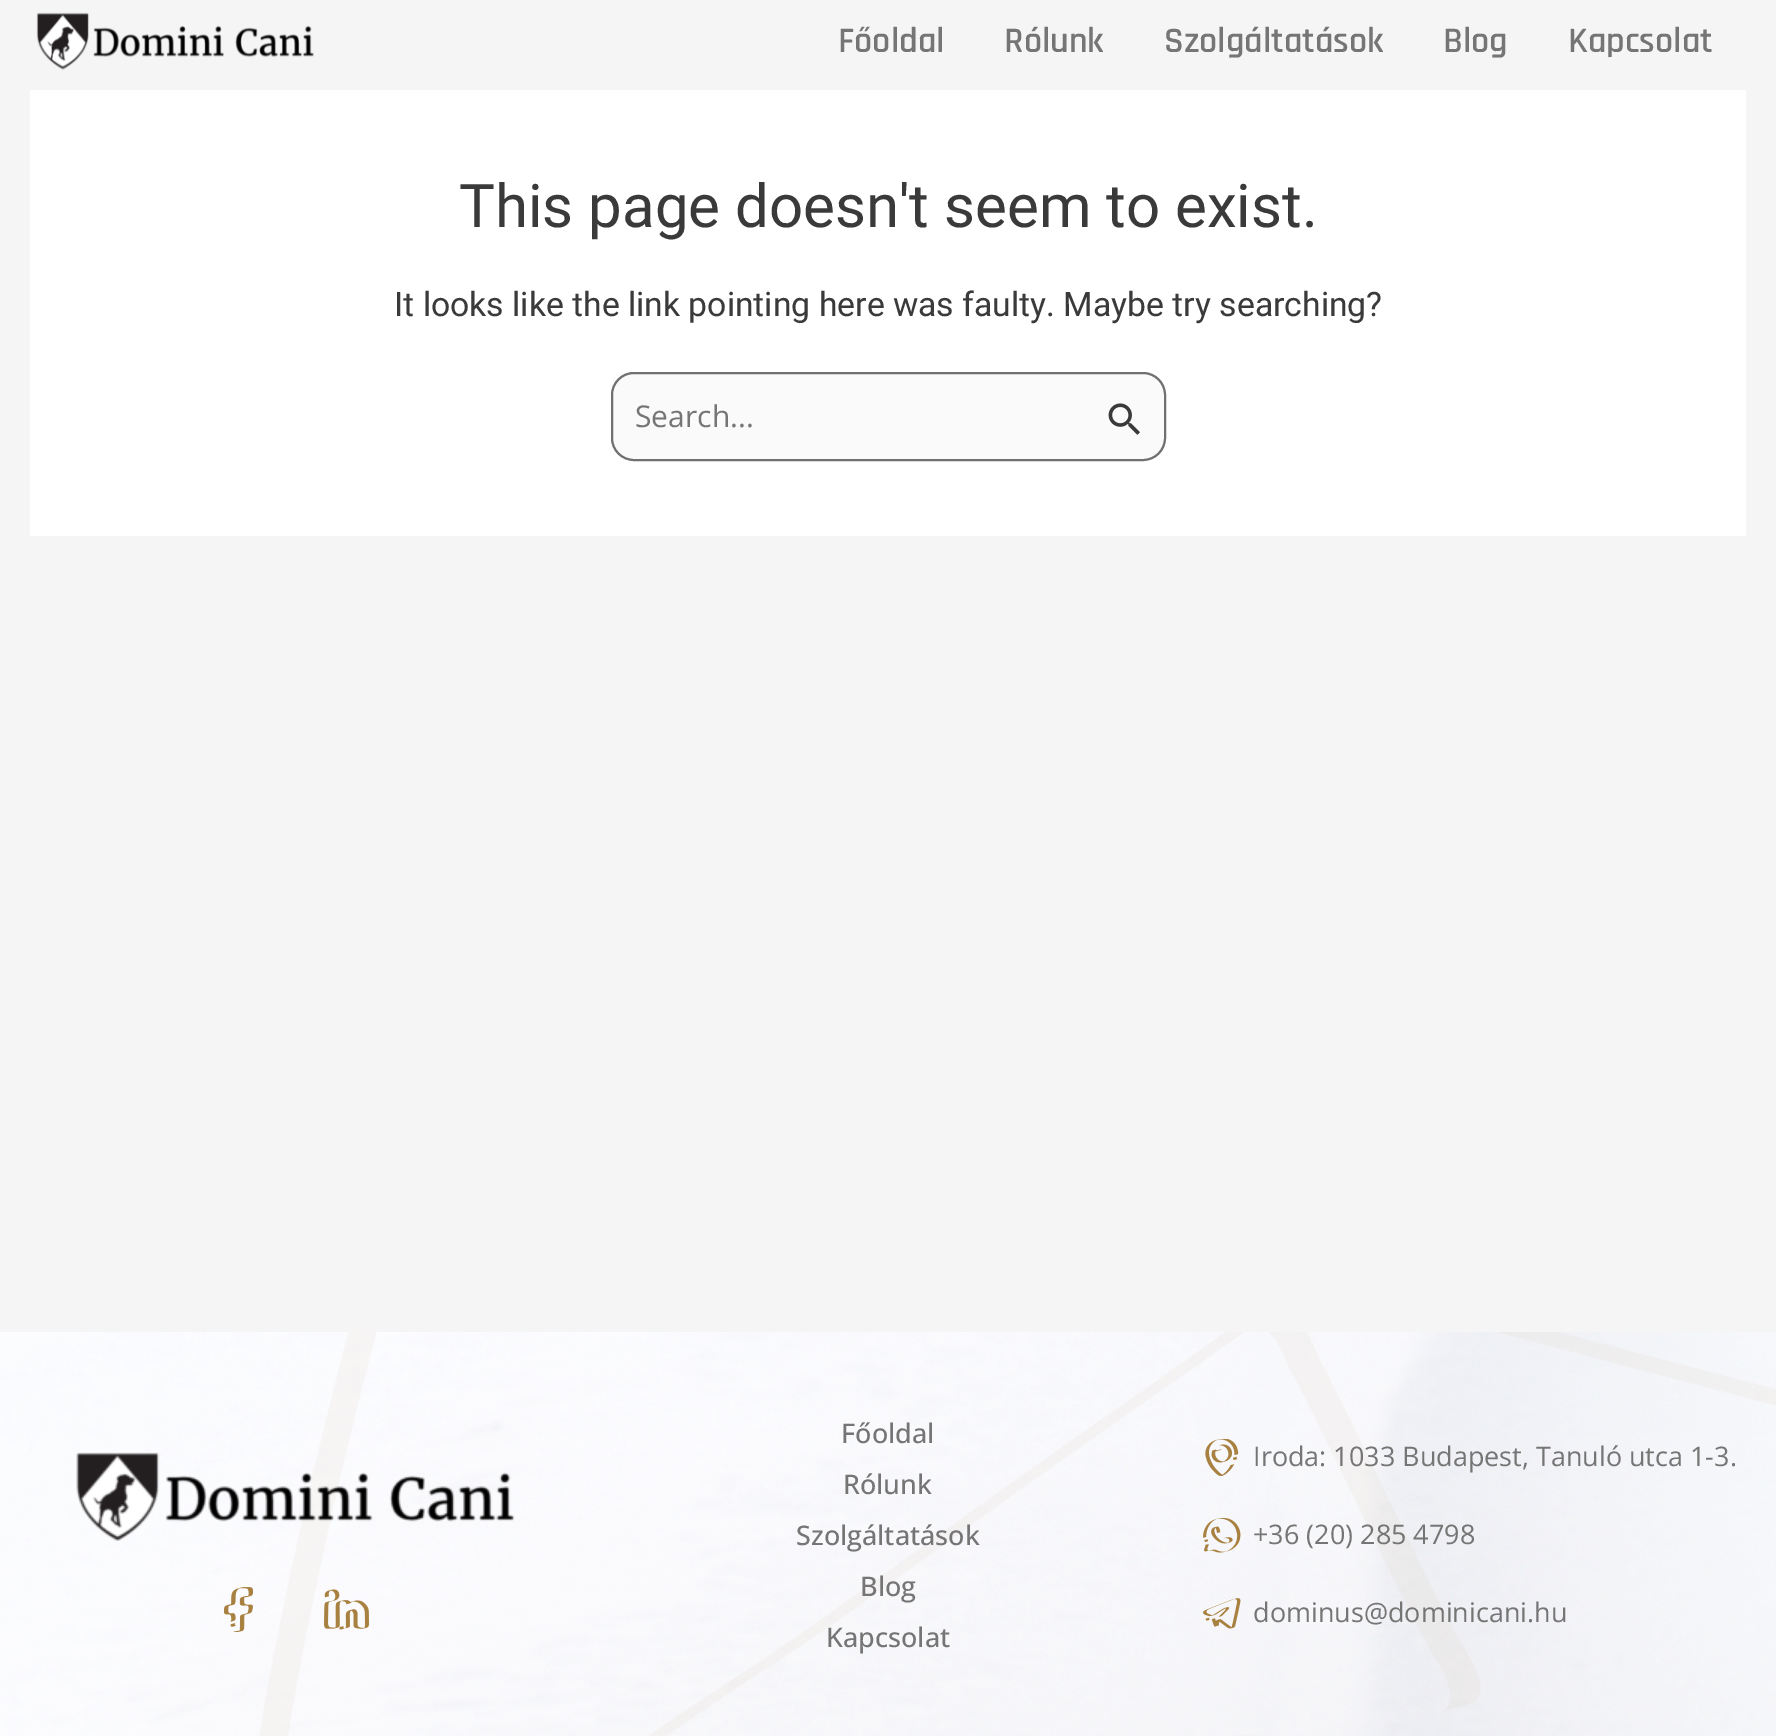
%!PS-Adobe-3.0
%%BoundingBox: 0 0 1776 1736
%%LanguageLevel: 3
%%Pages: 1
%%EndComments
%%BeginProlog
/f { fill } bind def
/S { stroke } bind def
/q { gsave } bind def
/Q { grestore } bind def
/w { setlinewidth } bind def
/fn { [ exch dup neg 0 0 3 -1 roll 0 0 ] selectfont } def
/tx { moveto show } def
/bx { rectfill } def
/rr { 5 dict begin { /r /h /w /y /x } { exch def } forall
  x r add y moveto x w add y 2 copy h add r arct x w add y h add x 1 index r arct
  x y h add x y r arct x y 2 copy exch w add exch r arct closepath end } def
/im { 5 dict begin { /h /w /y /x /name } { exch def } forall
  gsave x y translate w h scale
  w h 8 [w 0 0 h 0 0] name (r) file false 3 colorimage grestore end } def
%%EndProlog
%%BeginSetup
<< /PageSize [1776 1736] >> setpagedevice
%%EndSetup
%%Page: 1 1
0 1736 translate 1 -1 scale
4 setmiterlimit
0.961 setgray
0 0 1776 1736 bx
(image0.raw) 36 12 278 58 im
/Rajdhani-SemiBold 36 fn
0.459 setgray
(Főoldal) 838 52 tx
(Rólunk) 1004 52 tx
(Szolgáltatások) 1164 52 tx
(Blog) 1443 52 tx
(Kapcsolat) 1568 52 tx
1 setgray
30 90 1716 446 bx
/Roboto-Regular 60 fn
0.227 setgray
(This page doesn't seem to exist.) 459 227 tx
/Roboto-Regular 33.75 fn
(It looks like the link pointing here was faulty. Maybe try searching?) 394 316 tx
0.98 setgray
612 373 553 87 22 rr q f Q
0.439 setgray
2 w
S
/OpenSans-Regular 30 fn
0.459 setgray
(Search...) 635 427 tx
(image1.raw) 1108 403 32 32 im
(image2.raw) 0 1332 1776 404 im
(image3.raw) 76 1452 439 89 im
(image4.raw) 223 1587 30 45 im
(image5.raw) 324 1589 45 41 im
/OpenSans-Medium 27 fn
(Főoldal) 841 1443 tx
(Rólunk) 843 1494 tx
(Szolgáltatások) 796 1545 tx
(Blog) 860 1596 tx
(Kapcsolat) 826 1647 tx
(image6.raw) 1205 1439 34 37 im
/OpenSans-Regular 27 fn
(Iroda: 1033 Budapest, Tanuló utca 1-3.) 1253 1466 tx
(image7.raw) 1203 1517 38 36 im
(+36 \(20\) 285 4798) 1253 1544 tx
(image8.raw) 1203 1598 38 31 im
(dominus@dominicani.hu) 1253 1622 tx
showpage
%%EOF
